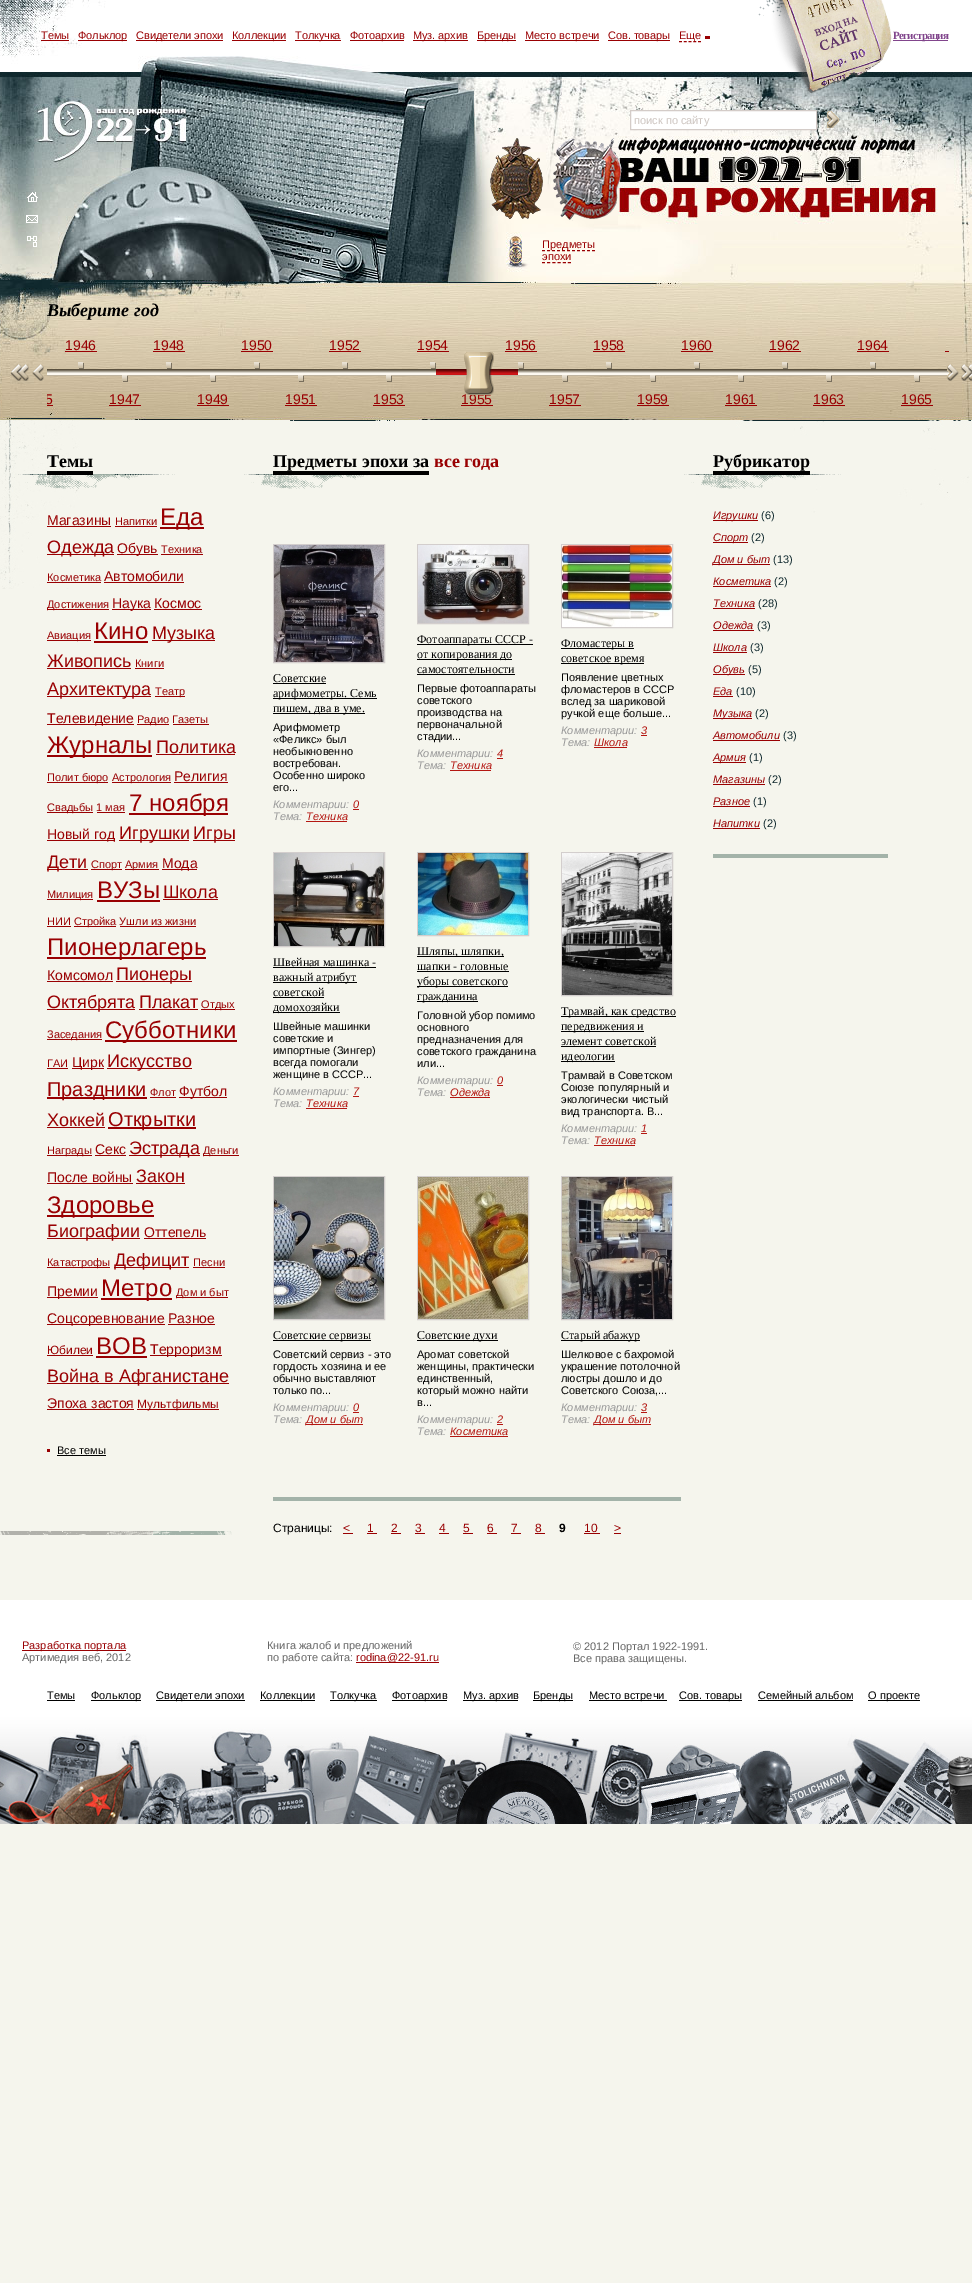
%!PS-Adobe-3.0
%%BoundingBox: 0 0 972 2283
%%LanguageLevel: 3
%%Pages: 1
%%EndComments
%%BeginProlog
/m { moveto } bind def
/l { lineto } bind def
/h { closepath } bind def
/f { fill } bind def
/S { stroke } bind def
/q { gsave } bind def
/Q { grestore } bind def
/fn { [ exch dup neg 0 0 3 -1 roll 0 0 ] selectfont } def
/tx { moveto show } def
/bx { rectfill } def
/im { 5 dict begin { /h /w /y /x /name } { exch def } forall
  gsave x y translate w h scale
  w h 8 [w 0 0 h 0 0] name (r) file false 3 colorimage grestore end } def
%%EndProlog
%%BeginSetup
<< /PageSize [972 2283] >> setpagedevice
%%EndSetup
%%Page: 1 1
0 2283 translate 1 -1 scale
4 setmiterlimit
0.961 0.961 0.929 setrgbcolor
0 0 972 2283 bx
(image0.raw) 0 0 972 420 im
(image1.raw) 0 1600 972 224 im
/LiberationSans-Regular 11 fn
0.6 0 0.008 setrgbcolor
41 39 m -0.1 0 (Темы) ashow
41 40 28 1 bx
78 40 49 1 bx
78 39 m -0.1 0 (Фольклор) ashow
136 40 87 1 bx
136 39 m -0.1 0 (Свидетели эпохи) ashow
232 40 54 1 bx
232 39 m -0.1 0 (Коллекции) ashow
295 40 46 1 bx
295 39 m -0.1 0 (Толкучка) ashow
350 40 54 1 bx
350 39 m -0.1 0 (Фотоархив) ashow
413 40 55 1 bx
413 39 m -0.1 0 (Муз. архив) ashow
477 40 39 1 bx
477 39 m -0.1 0 (Бренды) ashow
525 40 74 1 bx
525 39 m -0.1 0 (Место встречи) ashow
608 40 62 1 bx
608 39 m -0.1 0 (Сов. товары) ashow
[3 1.75] 0 setdash
679 41.5 m 701 41.5 l S
679 39 m -0.1 0 (Еще) ashow
705 36 5 3 bx
(image2.raw) 758 0 134 94 im
0.506 0.271 0.549 setrgbcolor
893 40 55 1 bx
/LiberationSerif-Bold 11 fn
893 39 m -0.75 0 (Регистрация) ashow
1 setgray
630.5 110.5 m 816.5 110.5 l 816.5 129.5 l 630.5 129.5 l h q f Q
0.831 0.8 0.784 setrgbcolor
[] 0 setdash
S
/LiberationSans-Regular 11 fn
0.804 0.773 0.753 setrgbcolor
(поиск по сайту) 634 124 tx
(image3.raw) 827 111 12 17 im
(image4.raw) 27 192 11 10 im
(image5.raw) 26 215 12 8 im
(image6.raw) 27 236 10 11 im
(image7.raw) 490 138 53 81 im
(image8.raw) 553 138 69 83 im
0.6 0 0.008 setrgbcolor
[3 2] 0 setdash
542 250.5 m 595 250.5 l S
(Предметы) 542 248 tx
(эпохи) 542 260 tx
[3 2.2] 0 setdash
542 262.5 m 571 262.5 l S
/LiberationSerif-BoldItalic 18 fn
0 setgray
(Выберите год) 47 316 tx
(image9.raw) 11 364 18 17 im
(image10.raw) 47 337 902 45 im
/LiberationSans-Regular 14 fn
0.6 0 0.008 setrgbcolor
(1946) 65 350 tx
65 351 32 1 bx
(1948) 153 350 tx
153 351 32 1 bx
(1950) 241 350 tx
241 351 32 1 bx
(1952) 329 350 tx
329 351 32 1 bx
(1954) 417 350 tx
417 351 32 1 bx
(1956) 505 350 tx
505 351 32 1 bx
(1958) 593 350 tx
593 351 32 1 bx
(1960) 681 350 tx
681 351 32 1 bx
(1962) 769 350 tx
769 351 32 1 bx
(1964) 857 350 tx
857 351 32 1 bx
945 351 4 1 bx
(1955) 461 404 tx
(image11.raw) 436 352 82 43 im
q
47 337 902 71 rectclip
(5) 45 404 tx
Q
47 405 6 1 bx
(1947) 109 404 tx
109 405 32 1 bx
(1949) 197 404 tx
197 405 32 1 bx
(1951) 285 404 tx
285 405 32 1 bx
(1953) 373 404 tx
373 405 32 1 bx
461 405 32 1 bx
(1957) 549 404 tx
549 405 32 1 bx
(1959) 637 404 tx
637 405 32 1 bx
(1961) 725 404 tx
725 405 32 1 bx
(1963) 813 404 tx
813 405 32 1 bx
(1965) 901 404 tx
901 405 32 1 bx
(image12.raw) 32 364 12 17 im
(image13.raw) 947 364 12 17 im
(image14.raw) 961 364 11 17 im
(image15.raw) 0 420 972 169 im
(image16.raw) 0 1531 232 4 im
(image17.raw) 18 474 157 15 im
/LiberationSerif-Bold 18 fn
0 setgray
(Темы) 47 467 tx
47 471 46 4 bx
/LiberationSans-Regular 14 fn
0.6 0 0.008 setrgbcolor
(Магазины) 47 525 tx
47 526 64 1 bx
/LiberationSans-Regular 11 fn
(Напитки) 115 525 tx
115 526 42 1 bx
160 527 44 2 bx
/LiberationSans-Regular 24 fn
(Еда) 160 525 tx
47 554 67 1 bx
/LiberationSans-Regular 18 fn
(Одежда) 47 553 tx
117 554 41 1 bx
/LiberationSans-Regular 14 fn
(Обувь) 117 553 tx
/LiberationSans-Regular 11 fn
(Техника) 161 553 tx
161 554 42 1 bx
(Косметика) 47 581 tx
47 582 54 1 bx
104 582 80 1 bx
/LiberationSans-Regular 14 fn
(Автомобили) 104 581 tx
47 609 62 1 bx
/LiberationSans-Regular 11 fn
(Достижения) 47 608 tx
112 609 39 1 bx
/LiberationSans-Regular 14 fn
(Наука) 112 608 tx
154 609 48 1 bx
(Космос) 154 608 tx
47 640 44 1 bx
/LiberationSans-Regular 11 fn
(Авиация) 47 639 tx
94 641 54 2 bx
/LiberationSans-Regular 24 fn
(Кино) 94 639 tx
152 640 63 1 bx
/LiberationSans-Regular 18 fn
(Музыка) 152 639 tx
(Живопись) 47 667 tx
47 668 84 1 bx
/LiberationSans-Regular 11 fn
(Книги) 135 667 tx
135 668 29 1 bx
47 696 104 1 bx
/LiberationSans-Regular 18 fn
(Архитектура) 47 695 tx
155 696 30 1 bx
/LiberationSans-Regular 11 fn
(Театр) 155 695 tx
47 724 87 1 bx
/LiberationSans-Regular 14 fn
(Телевидение) 47 723 tx
137 724 32 1 bx
/LiberationSans-Regular 11 fn
(Радио Газеты) 137 723 tx
173 724 36 1 bx
47 755 105 2 bx
/LiberationSans-Regular 24 fn
(Журналы) 47 753 tx
/LiberationSans-Regular 18 fn
(Политика) 156 753 tx
156 754 79 1 bx
47 782 61 1 bx
/LiberationSans-Regular 11 fn
(Полит бюро) 47 781 tx
112 782 59 1 bx
(Астрология) 112 781 tx
174 782 54 1 bx
/LiberationSans-Regular 14 fn
(Религия) 174 781 tx
47 812 46 1 bx
/LiberationSans-Regular 11 fn
(Свадьбы 1 мая) 47 811 tx
97 812 28 1 bx
129 813 99 2 bx
/LiberationSans-Regular 24 fn
(7 ноября) 129 811 tx
47 840 68 1 bx
/LiberationSans-Regular 14 fn
(Новый год) 47 839 tx
119 840 70 1 bx
/LiberationSans-Regular 18 fn
(Игрушки) 119 839 tx
193 840 42 1 bx
(Игры) 193 839 tx
47 869 41 1 bx
(Дети) 47 868 tx
91 869 31 1 bx
/LiberationSans-Regular 11 fn
(Спорт) 91 868 tx
125 869 34 1 bx
(Армия) 125 868 tx
162 869 35 1 bx
/LiberationSans-Regular 14 fn
(Мода) 162 868 tx
47 899 46 1 bx
/LiberationSans-Regular 11 fn
(Милиция) 47 898 tx
97 900 63 2 bx
/LiberationSans-Regular 24 fn
(ВУЗы) 97 898 tx
/LiberationSans-Regular 18 fn
(Школа) 163 898 tx
163 899 55 1 bx
/LiberationSans-Regular 11 fn
(НИИ) 47 925 tx
47 926 24 1 bx
74 926 42 1 bx
(Стройка Ушли из жизни) 74 925 tx
120 926 76 1 bx
47 957 159 2 bx
/LiberationSans-Regular 24 fn
(Пионерлагерь) 47 955 tx
/LiberationSans-Regular 14 fn
(Комсомол) 47 980 tx
47 981 66 1 bx
116 981 76 1 bx
/LiberationSans-Regular 18 fn
(Пионеры) 116 980 tx
47 1009 88 1 bx
(Октябрята) 47 1008 tx
(Плакат) 139 1008 tx
201 1009 34 1 bx
/LiberationSans-Regular 11 fn
(Отдых) 201 1008 tx
139 1009 59 1 bx
47 1039 55 1 bx
(Заседания) 47 1038 tx
105 1040 132 2 bx
/LiberationSans-Regular 24 fn
(Субботники) 105 1038 tx
/LiberationSans-Regular 11 fn
(ГАИ) 47 1067 tx
47 1068 21 1 bx
72 1068 32 1 bx
/LiberationSans-Regular 14 fn
(Цирк) 72 1067 tx
107 1068 85 1 bx
/LiberationSans-Regular 18 fn
(Искусство) 107 1067 tx
47 1097 100 2 bx
/LiberationSans-Regular 20 fn
(Праздники) 47 1096 tx
/LiberationSans-Regular 11 fn
(Флот) 150 1096 tx
150 1097 26 1 bx
179 1097 48 1 bx
/LiberationSans-Regular 14 fn
(Футбол) 179 1096 tx
/LiberationSans-Regular 18 fn
(Хоккей) 47 1126 tx
47 1127 58 1 bx
108 1127 88 2 bx
/LiberationSans-Regular 20 fn
(Открытки) 108 1126 tx
47 1155 45 1 bx
/LiberationSans-Regular 11 fn
(Награды) 47 1154 tx
95 1155 31 1 bx
/LiberationSans-Regular 14 fn
(Секс) 95 1154 tx
129 1155 71 1 bx
/LiberationSans-Regular 18 fn
(Эстрада) 129 1154 tx
203 1155 36 1 bx
/LiberationSans-Regular 11 fn
(Деньги) 203 1154 tx
/LiberationSans-Regular 14 fn
(После войны) 47 1182 tx
47 1183 86 1 bx
/LiberationSans-Regular 18 fn
(Закон) 136 1182 tx
136 1183 49 1 bx
47 1215 107 2 bx
/LiberationSans-Regular 24 fn
(Здоровье) 47 1213 tx
47 1238 93 1 bx
/LiberationSans-Regular 18 fn
(Биографии) 47 1237 tx
/LiberationSans-Regular 14 fn
(Оттепель) 144 1237 tx
144 1238 62 1 bx
47 1267 63 1 bx
/LiberationSans-Regular 11 fn
(Катастрофы) 47 1266 tx
114 1267 75 1 bx
/LiberationSans-Regular 18 fn
(Дефицит) 114 1266 tx
/LiberationSans-Regular 11 fn
(Песни) 193 1266 tx
193 1267 32 1 bx
47 1297 51 1 bx
/LiberationSans-Regular 14 fn
(Премии) 47 1296 tx
101 1298 71 2 bx
/LiberationSans-Regular 24 fn
(Метро) 101 1296 tx
176 1297 52 1 bx
/LiberationSans-Regular 11 fn
(Дом и быт) 176 1296 tx
47 1324 118 1 bx
/LiberationSans-Regular 14 fn
(Соцсоревнование) 47 1323 tx
(Разное) 168 1323 tx
168 1324 47 1 bx
/LiberationSans-Regular 12 fn
(Юбилеи) 47 1354 tx
47 1355 46 1 bx
/LiberationSans-Regular 24 fn
(ВОВ) 96 1354 tx
150 1355 72 1 bx
/LiberationSans-Regular 14 fn
(Терроризм) 150 1354 tx
96 1356 51 2 bx
47 1383 182 1 bx
/LiberationSans-Regular 18 fn
(Война в Афганистане) 47 1382 tx
/LiberationSans-Regular 14 fn
(Эпоха застоя) 47 1408 tx
47 1409 87 1 bx
137 1409 82 1 bx
/LiberationSans-Regular 12 fn
(Мультфильмы) 137 1408 tx
/LiberationSans-Regular 11 fn
0 setgray
(Все темы) 57 1454 tx
0.6 0 0.008 setrgbcolor
47 1449 3 3 bx
0 setgray
57 1455 49 1 bx
(image18.raw) 244 474 124 15 im
/LiberationSerif-Bold 18 fn
(Предметы эпохи за) 273 467 tx
273 471 156 4 bx
0.6 0 0.008 setrgbcolor
(все года) 434 467 tx
0.639 0.702 0.663 setrgbcolor
273 1497 408 4 bx
0.827 0.808 0.804 setrgbcolor
[] 0 setdash
273.5 544.5 111 118 rectstroke
(image19.raw) 274 545 110 117 im
/LiberationSerif-Regular 12 fn
0 setgray
(Советские) 273 682 tx
273 683 53 1 bx
273 698 104 1 bx
(арифмометры. Семь) 273 697 tx
273 713 92 1 bx
(пишем, два в уме.) 273 712 tx
/LiberationSans-Regular 11 fn
(Арифмометр) 273 731 tx
(«Феликс» был) 273 743 tx
(необыкновенно) 273 755 tx
(востребован.) 273 767 tx
(Особенно широко) 273 779 tx
(его...) 273 791 tx
/LiberationSans-Italic 11 fn
0.6 setgray
(Комментарии:) 273 808 tx
0.706 0.09 0.071 setrgbcolor
(0) 353 808 tx
353 809 6 1 bx
0.6 setgray
(Тема:) 273 820 tx
0.706 0.09 0.071 setrgbcolor
(Техника) 306 820 tx
306 821 41 1 bx
0.827 0.808 0.804 setrgbcolor
417.5 544.5 111 79 rectstroke
(image20.raw) 418 545 110 78 im
0 setgray
417 644 116 1 bx
/LiberationSerif-Regular 12 fn
(Фотоаппараты СССР -) 417 643 tx
417 659 95 1 bx
(от копирования до) 417 658 tx
(самостоятельности) 417 673 tx
417 674 98 1 bx
/LiberationSans-Regular 11 fn
(Первые фотоаппараты) 417 692 tx
(советского) 417 704 tx
(производства на) 417 716 tx
(первоначальной) 417 728 tx
(стадии...) 417 740 tx
/LiberationSans-Italic 11 fn
0.6 setgray
(Комментарии:) 417 757 tx
0.706 0.09 0.071 setrgbcolor
(4) 497 757 tx
497 758 6 1 bx
0.6 setgray
(Тема:) 417 769 tx
0.706 0.09 0.071 setrgbcolor
(Техника) 450 769 tx
450 770 41 1 bx
0.827 0.808 0.804 setrgbcolor
561.5 544.5 111 83 rectstroke
(image21.raw) 562 545 110 82 im
0 setgray
561 648 73 1 bx
/LiberationSerif-Regular 12 fn
(Фломастеры в) 561 647 tx
561 663 83 1 bx
(советское время) 561 662 tx
/LiberationSans-Regular 11 fn
(Появление цветных) 561 681 tx
(фломастеров в СССР) 561 693 tx
(вслед за шариковой) 561 705 tx
(ручкой еще больше...) 561 717 tx
/LiberationSans-Italic 11 fn
0.6 setgray
(Комментарии:) 561 734 tx
0.706 0.09 0.071 setrgbcolor
(3) 641 734 tx
641 735 6 1 bx
0.6 setgray
(Тема:) 561 746 tx
0.706 0.09 0.071 setrgbcolor
(Школа) 594 746 tx
594 747 33 1 bx
0.827 0.808 0.804 setrgbcolor
273.5 852.5 111 94 rectstroke
(image22.raw) 274 853 110 93 im
/LiberationSerif-Regular 12 fn
0 setgray
(Швейная машинка -) 273 966 tx
273 967 103 1 bx
273 982 84 1 bx
(важный атрибут) 273 981 tx
(советской) 273 996 tx
273 997 51 1 bx
273 1012 67 1 bx
(домохозяйки) 273 1011 tx
/LiberationSans-Regular 11 fn
(Швейные машинки) 273 1030 tx
(советские и) 273 1042 tx
(импортные \(Зингер\)) 273 1054 tx
(всегда помогали) 273 1066 tx
(женщине в СССР...) 273 1078 tx
/LiberationSans-Italic 11 fn
0.6 setgray
(Комментарии:) 273 1095 tx
0.706 0.09 0.071 setrgbcolor
(7) 353 1095 tx
353 1096 6 1 bx
0.6 setgray
(Тема:) 273 1107 tx
0.706 0.09 0.071 setrgbcolor
(Техника) 306 1107 tx
306 1108 41 1 bx
0.827 0.808 0.804 setrgbcolor
417.5 852.5 111 83 rectstroke
(image23.raw) 418 853 110 82 im
0 setgray
417 956 87 1 bx
/LiberationSerif-Regular 12 fn
(Шляпы, шляпки,) 417 955 tx
(шапки - головные) 417 970 tx
417 971 92 1 bx
417 986 91 1 bx
(уборы советского) 417 985 tx
417 1001 61 1 bx
(гражданина) 417 1000 tx
/LiberationSans-Regular 11 fn
(Головной убор помимо) 417 1019 tx
(основного) 417 1031 tx
(предназначения для) 417 1043 tx
(советского гражданина) 417 1055 tx
(или...) 417 1067 tx
/LiberationSans-Italic 11 fn
0.6 setgray
(Комментарии:) 417 1084 tx
0.706 0.09 0.071 setrgbcolor
(0) 497 1084 tx
497 1085 6 1 bx
0.6 setgray
(Тема:) 417 1096 tx
0.706 0.09 0.071 setrgbcolor
(Одежда) 450 1096 tx
450 1097 40 1 bx
0.827 0.808 0.804 setrgbcolor
561.5 852.5 111 143 rectstroke
(image24.raw) 562 853 110 142 im
0 setgray
561 1016 115 1 bx
/LiberationSerif-Regular 12 fn
(Трамвай, как средство) 561 1015 tx
561 1031 83 1 bx
(передвижения и) 561 1030 tx
(элемент советской) 561 1045 tx
561 1046 95 1 bx
561 1061 54 1 bx
(идеологии) 561 1060 tx
/LiberationSans-Regular 11 fn
(Трамвай в Советском) 561 1079 tx
(Союзе популярный и) 561 1091 tx
(экологически чистый) 561 1103 tx
(вид транспорта. В...) 561 1115 tx
/LiberationSans-Italic 11 fn
0.6 setgray
(Комментарии:) 561 1132 tx
0.706 0.09 0.071 setrgbcolor
(1) 641 1132 tx
641 1133 6 1 bx
0.6 setgray
(Тема:) 561 1144 tx
0.706 0.09 0.071 setrgbcolor
(Техника) 594 1144 tx
594 1145 41 1 bx
0.827 0.808 0.804 setrgbcolor
273.5 1176.5 111 143 rectstroke
(image25.raw) 274 1177 110 142 im
0 setgray
273 1340 98 1 bx
/LiberationSerif-Regular 12 fn
(Советские сервизы) 273 1339 tx
/LiberationSans-Regular 11 fn
(Советский сервиз - это) 273 1358 tx
(гордость хозяина и ее) 273 1370 tx
(обычно выставляют) 273 1382 tx
(только по...) 273 1394 tx
/LiberationSans-Italic 11 fn
0.6 setgray
(Комментарии:) 273 1411 tx
0.706 0.09 0.071 setrgbcolor
(0) 353 1411 tx
353 1412 6 1 bx
0.6 setgray
(Тема:) 273 1423 tx
0.706 0.09 0.071 setrgbcolor
306 1424 57 1 bx
(Дом и быт) 306 1423 tx
0.827 0.808 0.804 setrgbcolor
417.5 1176.5 111 143 rectstroke
(image26.raw) 418 1177 110 142 im
0 setgray
417 1340 81 1 bx
/LiberationSerif-Regular 12 fn
(Советские духи) 417 1339 tx
/LiberationSans-Regular 11 fn
(Аромат советской) 417 1358 tx
(женщины, практически) 417 1370 tx
(единственный,) 417 1382 tx
(который можно найти) 417 1394 tx
(в...) 417 1406 tx
/LiberationSans-Italic 11 fn
0.6 setgray
(Комментарии:) 417 1423 tx
0.706 0.09 0.071 setrgbcolor
(2) 497 1423 tx
497 1424 6 1 bx
0.6 setgray
(Тема:) 417 1435 tx
0.706 0.09 0.071 setrgbcolor
(Косметика) 450 1435 tx
450 1436 58 1 bx
0.827 0.808 0.804 setrgbcolor
561.5 1176.5 111 143 rectstroke
(image27.raw) 562 1177 110 142 im
0 setgray
561 1340 79 1 bx
/LiberationSerif-Regular 12 fn
(Старый абажур) 561 1339 tx
/LiberationSans-Regular 11 fn
(Шелковое с бахромой) 561 1358 tx
(украшение потолочной) 561 1370 tx
(люстры дошло и до) 561 1382 tx
(Советского Союза,...) 561 1394 tx
/LiberationSans-Italic 11 fn
0.6 setgray
(Комментарии:) 561 1411 tx
0.706 0.09 0.071 setrgbcolor
(3) 641 1411 tx
641 1412 6 1 bx
0.6 setgray
(Тема:) 561 1423 tx
0.706 0.09 0.071 setrgbcolor
594 1424 57 1 bx
(Дом и быт) 594 1423 tx
/LiberationSans-Regular 12 fn
0 setgray
(Страницы:) 273 1532 tx
0.6 0 0.008 setrgbcolor
(<) 343 1532 tx
343 1533 10 1 bx
(1) 367 1532 tx
367 1533 10 1 bx
(2) 391 1532 tx
391 1533 10 1 bx
(3) 415 1532 tx
415 1533 10 1 bx
(4) 439 1532 tx
439 1533 10 1 bx
(5) 463 1532 tx
463 1533 10 1 bx
(6) 487 1532 tx
487 1533 10 1 bx
(7) 511 1532 tx
511 1533 10 1 bx
(8) 535 1532 tx
535 1533 10 1 bx
/LiberationSans-Bold 12 fn
0 setgray
(9) 559 1532 tx
/LiberationSans-Regular 12 fn
0.6 0 0.008 setrgbcolor
(10) 584 1532 tx
584 1533 16 1 bx
(>) 614 1532 tx
614 1533 7 1 bx
(image28.raw) 684 474 157 15 im
/LiberationSerif-Bold 18 fn
0 setgray
(Рубрикатор) 713 467 tx
713 471 97 4 bx
0.639 0.702 0.663 setrgbcolor
713 854 175 4 bx
0.6 0 0.008 setrgbcolor
713 520 45 1 bx
/LiberationSans-Italic 11 fn
(Игрушки) 713 519 tx
/LiberationSans-Regular 11 fn
0.059 0.157 0.176 setrgbcolor
(\(6\)) 761 519 tx
0.6 0 0.008 setrgbcolor
713 542 35 1 bx
/LiberationSans-Italic 11 fn
(Спорт) 713 541 tx
/LiberationSans-Regular 11 fn
0.059 0.157 0.176 setrgbcolor
(\(2\)) 751 541 tx
0.6 0 0.008 setrgbcolor
713 564 57 1 bx
/LiberationSans-Italic 11 fn
(Дом и быт) 713 563 tx
/LiberationSans-Regular 11 fn
0.059 0.157 0.176 setrgbcolor
(\(13\)) 773 563 tx
/LiberationSans-Italic 11 fn
0.6 0 0.008 setrgbcolor
(Косметика) 713 585 tx
713 586 58 1 bx
/LiberationSans-Regular 11 fn
0.059 0.157 0.176 setrgbcolor
(\(2\)) 774 585 tx
/LiberationSans-Italic 11 fn
0.6 0 0.008 setrgbcolor
(Техника) 713 607 tx
713 608 42 1 bx
/LiberationSans-Regular 11 fn
0.059 0.157 0.176 setrgbcolor
(\(28\)) 758 607 tx
/LiberationSans-Italic 11 fn
0.6 0 0.008 setrgbcolor
(Одежда) 713 629 tx
713 630 41 1 bx
/LiberationSans-Regular 11 fn
0.059 0.157 0.176 setrgbcolor
(\(3\)) 757 629 tx
/LiberationSans-Italic 11 fn
0.6 0 0.008 setrgbcolor
(Школа) 713 651 tx
713 652 34 1 bx
/LiberationSans-Regular 11 fn
0.059 0.157 0.176 setrgbcolor
(\(3\)) 750 651 tx
0.6 0 0.008 setrgbcolor
713 674 32 1 bx
/LiberationSans-Italic 11 fn
(Обувь) 713 673 tx
/LiberationSans-Regular 11 fn
0.059 0.157 0.176 setrgbcolor
(\(5\)) 748 673 tx
/LiberationSans-Italic 11 fn
0.6 0 0.008 setrgbcolor
(Еда) 713 695 tx
713 696 20 1 bx
/LiberationSans-Regular 11 fn
0.059 0.157 0.176 setrgbcolor
(\(10\)) 736 695 tx
0.6 0 0.008 setrgbcolor
713 718 39 1 bx
/LiberationSans-Italic 11 fn
(Музыка) 713 717 tx
/LiberationSans-Regular 11 fn
0.059 0.157 0.176 setrgbcolor
(\(2\)) 755 717 tx
/LiberationSans-Italic 11 fn
0.6 0 0.008 setrgbcolor
(Автомобили) 713 739 tx
713 740 67 1 bx
/LiberationSans-Regular 11 fn
0.059 0.157 0.176 setrgbcolor
(\(3\)) 783 739 tx
0.6 0 0.008 setrgbcolor
713 762 33 1 bx
/LiberationSans-Italic 11 fn
(Армия) 713 761 tx
/LiberationSans-Regular 11 fn
0.059 0.157 0.176 setrgbcolor
(\(1\)) 749 761 tx
/LiberationSans-Italic 11 fn
0.6 0 0.008 setrgbcolor
(Магазины) 713 783 tx
713 784 52 1 bx
/LiberationSans-Regular 11 fn
0.059 0.157 0.176 setrgbcolor
(\(2\)) 768 783 tx
/LiberationSans-Italic 11 fn
0.6 0 0.008 setrgbcolor
(Разное) 713 805 tx
713 806 37 1 bx
/LiberationSans-Regular 11 fn
0.059 0.157 0.176 setrgbcolor
(\(1\)) 753 805 tx
/LiberationSans-Italic 11 fn
0.6 0 0.008 setrgbcolor
(Напитки) 713 827 tx
713 828 47 1 bx
/LiberationSans-Regular 11 fn
0.059 0.157 0.176 setrgbcolor
(\(2\)) 763 827 tx
0.6 0 0.008 setrgbcolor
22 1650 104 1 bx
(Разработка портала) 22 1649 tx
0.4 setgray
(Артимедия веб, 2012) 22 1661 tx
(Книга жалоб и предложений) 267 1649 tx
(по работе сайта:) 267 1661 tx
0.6 0 0.008 setrgbcolor
356 1662 83 1 bx
(rodina@22-91.ru) 356 1661 tx
0.4 setgray
(© 2012 Портал 1922-1991.) 573 1650 tx
(Все права защищены.) 573 1662 tx
0 setgray
(Темы) 47 1699 tx
47 1700 28 1 bx
91 1700 50 1 bx
(Фольклор) 91 1699 tx
156 1700 89 1 bx
(Свидетели эпохи) 156 1699 tx
260 1700 55 1 bx
(Коллекции) 260 1699 tx
330 1700 47 1 bx
(Толкучка) 330 1699 tx
392 1700 55 1 bx
(Фотоархив) 392 1699 tx
463 1700 55 1 bx
(Муз. архив) 463 1699 tx
533 1700 40 1 bx
(Бренды) 533 1699 tx
589 1700 78 1 bx
(Место встречи) 589 1699 tx
679 1700 63 1 bx
(Сов. товары) 679 1699 tx
(Семейный альбом) 758 1699 tx
758 1700 95 1 bx
868 1700 52 1 bx
(О проекте) 868 1699 tx
showpage
%%EOF
